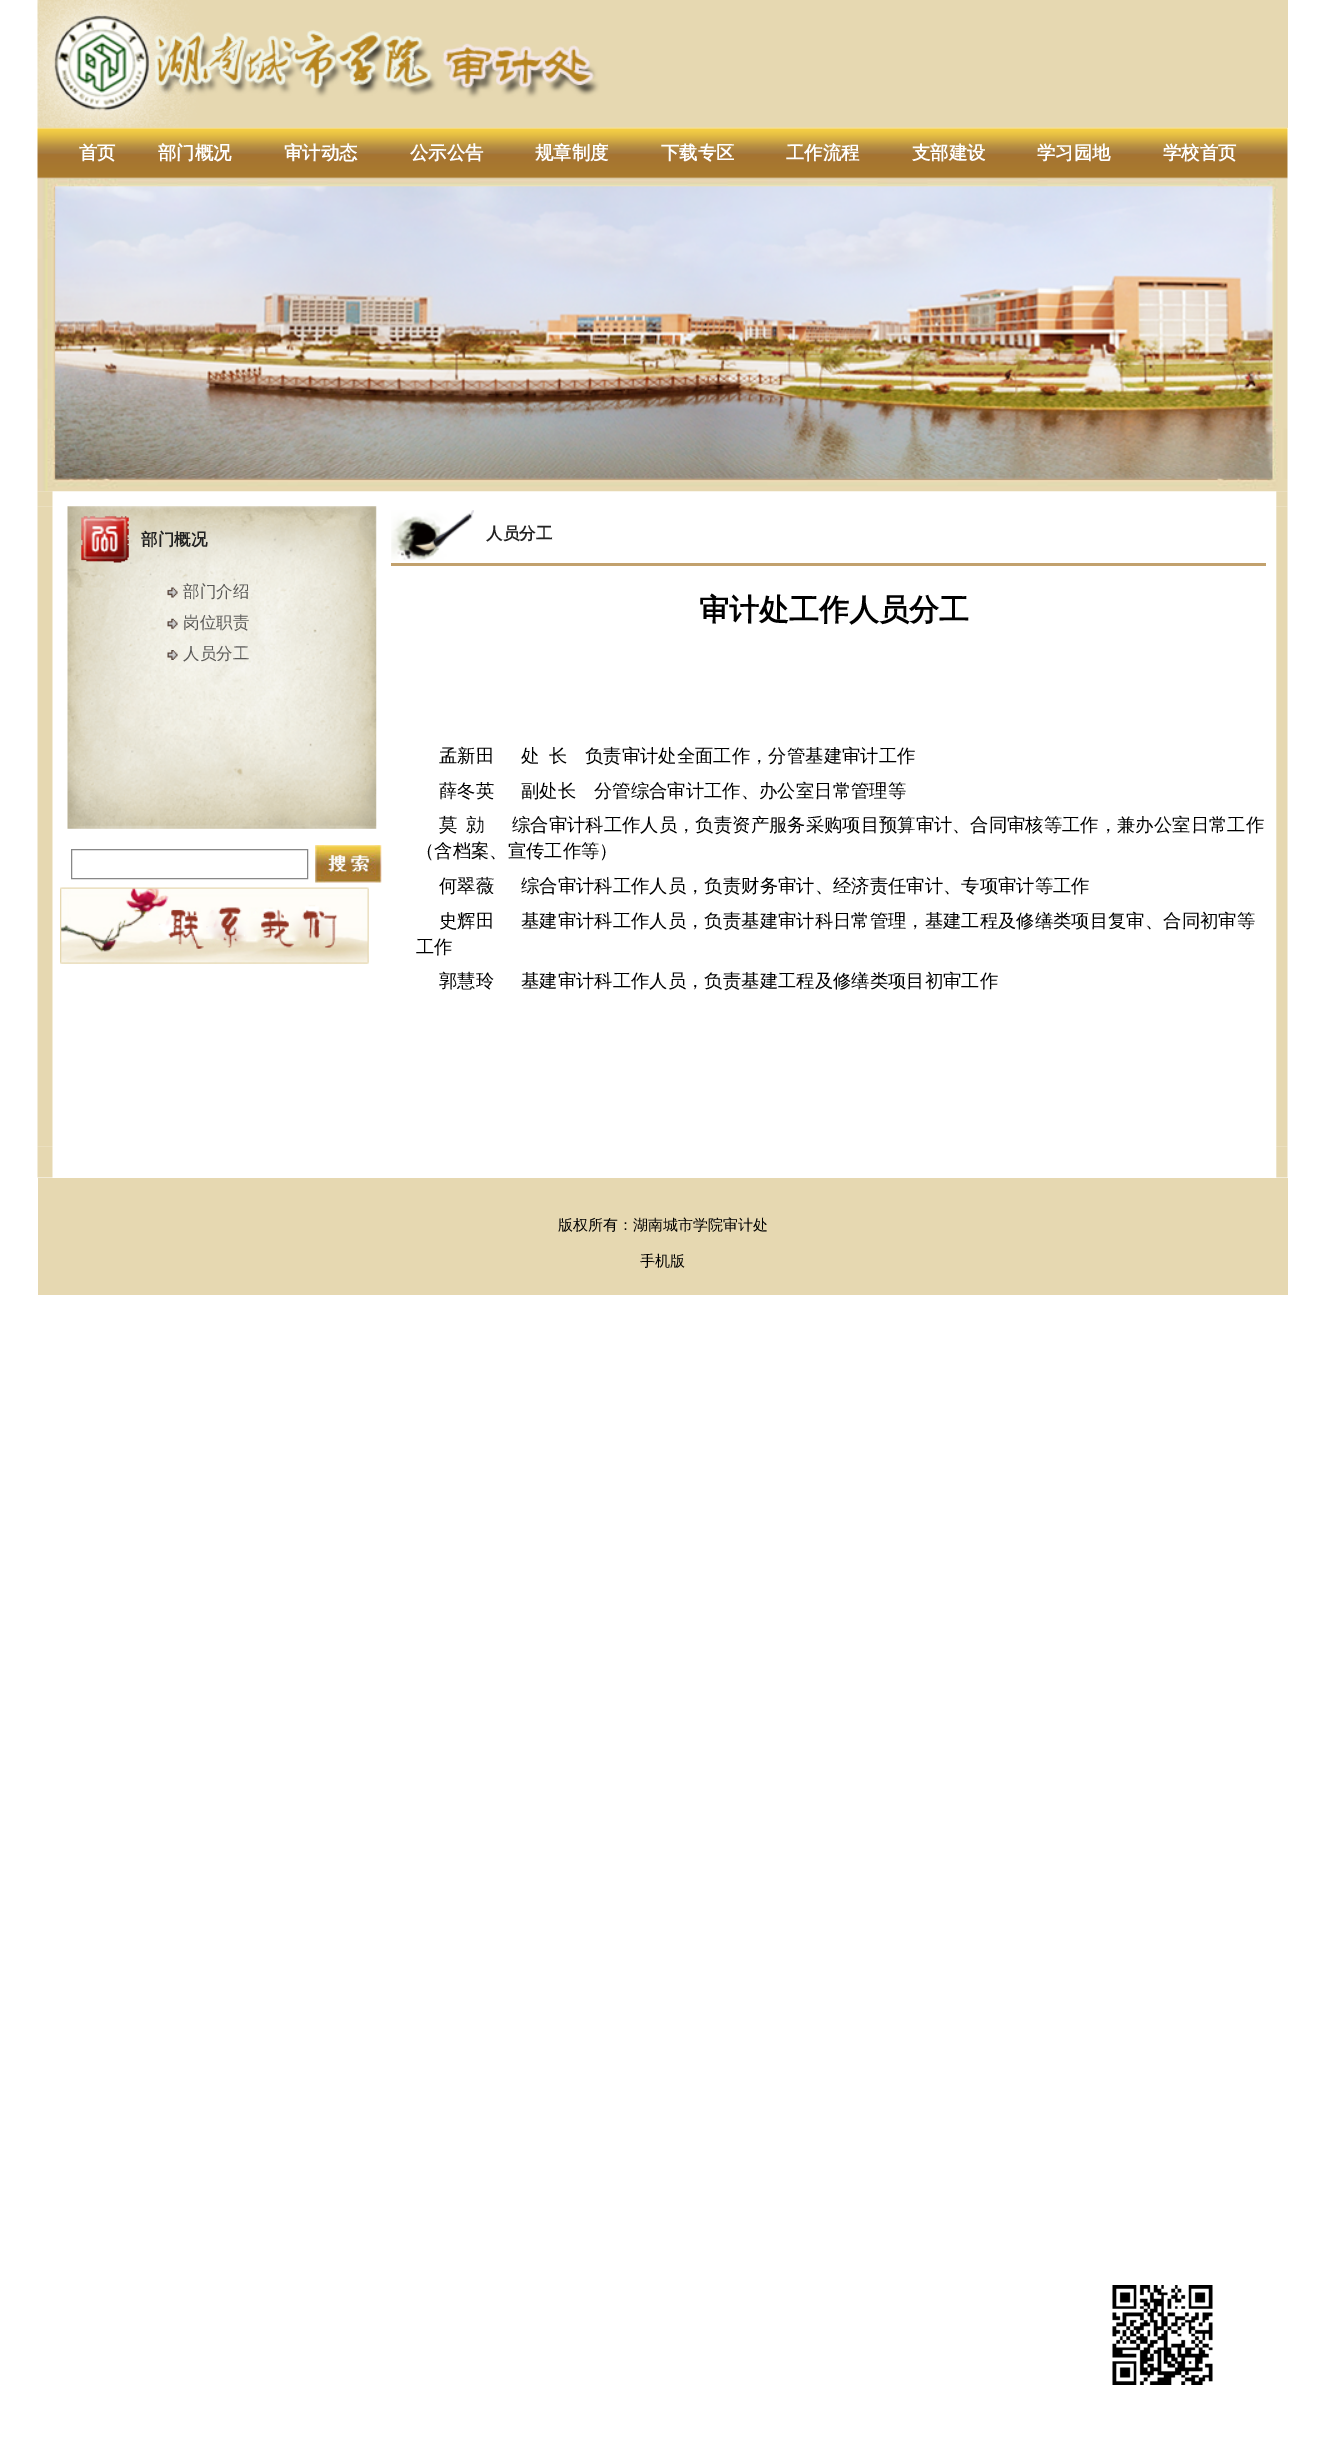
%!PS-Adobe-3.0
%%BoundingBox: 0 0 1325 2459
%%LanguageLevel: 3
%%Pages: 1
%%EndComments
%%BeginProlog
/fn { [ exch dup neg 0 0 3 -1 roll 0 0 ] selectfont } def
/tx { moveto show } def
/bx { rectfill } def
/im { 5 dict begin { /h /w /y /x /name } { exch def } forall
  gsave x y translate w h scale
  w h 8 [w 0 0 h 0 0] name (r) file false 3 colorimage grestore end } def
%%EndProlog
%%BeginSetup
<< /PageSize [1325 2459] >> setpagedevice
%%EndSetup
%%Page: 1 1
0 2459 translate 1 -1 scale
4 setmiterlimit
1 setgray
0 0 1325 2459 bx
0.902 0.847 0.694 setrgbcolor
38 0 1250 128 bx
(image1.raw) 37 127 1251 52 im
(image0.raw) 37 0 563 128 im
/WenQuanYiZenHei-Bold 18.35 fn
1 setgray
(首页) 79 159 tx
(部门概况) 158 159 tx
(审计动态) 284 159 tx
(公示公告) 410 159 tx
(规章制度) 535 159 tx
(下载专区) 661 159 tx
(工作流程) 786 159 tx
(支部建设) 912 159 tx
(学习园地) 1037 159 tx
(学校首页) 1163 159 tx
(image3.raw) 37 491 1251 16 im
(image2.raw) 37 178 1251 314 im
(image4.raw) 37 506 1251 641 im
(image5.raw) 67 506 310 323 im
(image6.raw) 81 516 48 47 im
/WenQuanYiZenHei-Bold 16.5 fn
0.133 setgray
(部门概况) 141 545 tx
(image7.raw) 167 587 11 11 im
/WenQuanYiZenHei-Medium 16.5 fn
0.349 0.345 0.337 setrgbcolor
(部门介绍) 183 597 tx
(image8.raw) 167 618 11 11 im
(岗位职责) 183 628 tx
(image9.raw) 167 650 11 10 im
(人员分工) 183 659 tx
0.529 setgray
71.5 849.5 236 29 rectstroke
(image10.raw) 315 845 67 38 im
(image11.raw) 60 887 309 77 im
(image12.raw) 391 510 83 51 im
/WenQuanYiZenHei-Bold 16.5 fn
0.133 setgray
(人员分工) 486 539 tx
0.761 0.631 0.427 setrgbcolor
391 563 875 3 bx
/WenQuanYiZenHei-Bold 30 fn
0 setgray
(审计处工作人员分工) 699 620 tx
/WenQuanYiZenHei-Medium 18.35 fn
(孟新田) 439 762 tx
(处) 521 762 tx
(长) 549 762 tx
(负责审计处全面工作，分管基建审计工作) 585 762 tx
(薛冬英) 439 797 tx
(副处长) 521 797 tx
(分管综合审计工作、办公室日常管理等) 594 797 tx
(莫) 439 831 tx
(勍) 466 831 tx
(综合审计科工作人员，负责资产服务采购项目预算审计) 512 831 tx
(、合同审核等工作，兼办公室日常工作) 952 831 tx
(（含档案、宣传工作等）) 416 857 tx
(何翠薇) 439 892 tx
(综合审计科工作人员，负责财务审计、经济责任审计、专项审计等工作) 521 892 tx
(史辉田) 439 927 tx
(基建审计科工作人员，负责基建审计科日常管理，基建工程及修缮类项目复审、合同初审等) 521 927 tx
(工作) 416 953 tx
(郭慧玲) 439 987 tx
(基建审计科工作人员，负责基建工程及修缮类项目初审工作) 521 987 tx
(image13.raw) 37 1146 1251 32 im
0.902 0.847 0.694 setrgbcolor
38 1178 1250 117 bx
/WenQuanYiZenHei-Medium 15 fn
0 setgray
(版权所有：湖南城市学院审计处) 558 1230 tx
(手机版) 640 1266 tx
(image14.raw) 1112 2285 101 100 im
showpage
%%EOF
